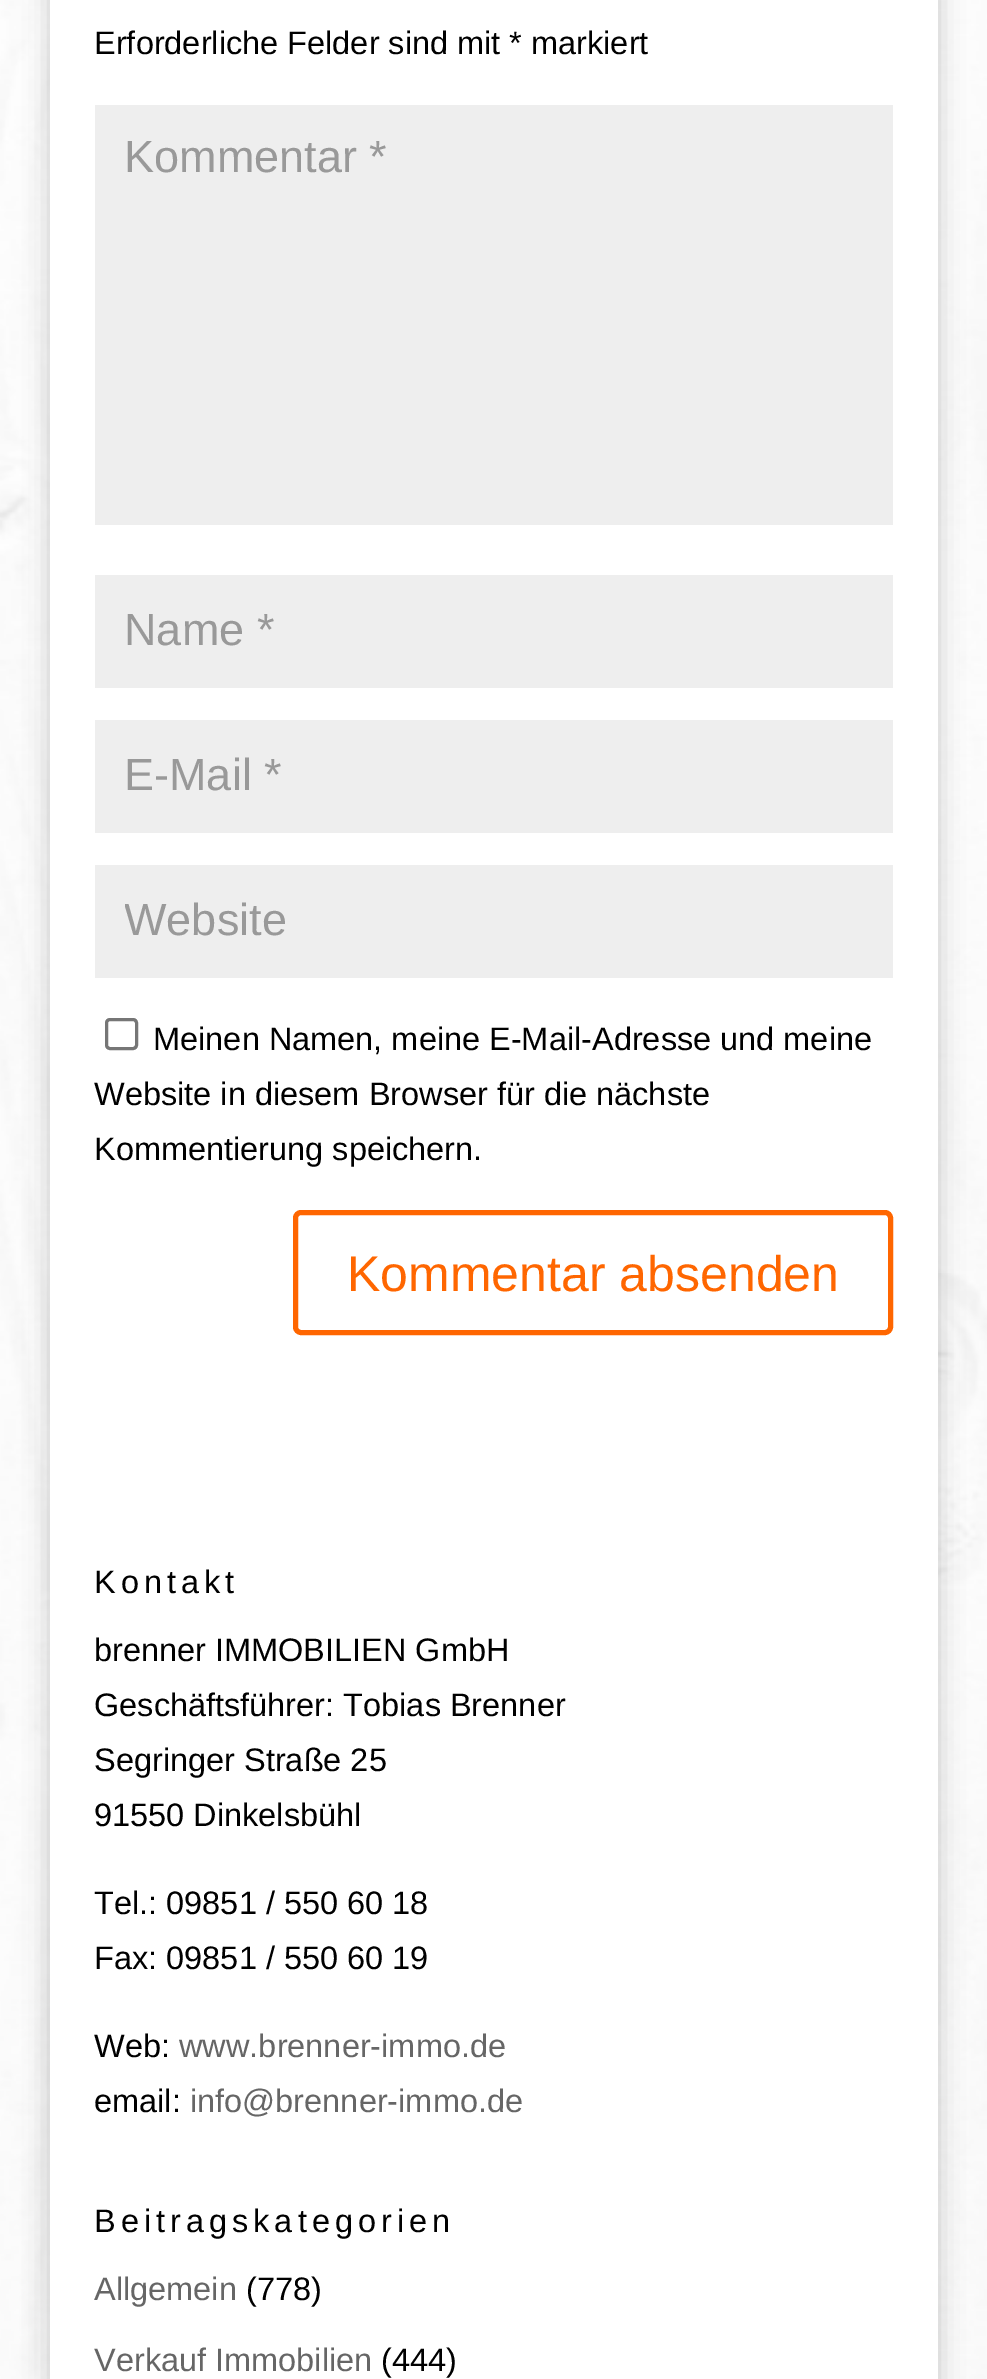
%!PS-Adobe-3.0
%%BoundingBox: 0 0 987 2379
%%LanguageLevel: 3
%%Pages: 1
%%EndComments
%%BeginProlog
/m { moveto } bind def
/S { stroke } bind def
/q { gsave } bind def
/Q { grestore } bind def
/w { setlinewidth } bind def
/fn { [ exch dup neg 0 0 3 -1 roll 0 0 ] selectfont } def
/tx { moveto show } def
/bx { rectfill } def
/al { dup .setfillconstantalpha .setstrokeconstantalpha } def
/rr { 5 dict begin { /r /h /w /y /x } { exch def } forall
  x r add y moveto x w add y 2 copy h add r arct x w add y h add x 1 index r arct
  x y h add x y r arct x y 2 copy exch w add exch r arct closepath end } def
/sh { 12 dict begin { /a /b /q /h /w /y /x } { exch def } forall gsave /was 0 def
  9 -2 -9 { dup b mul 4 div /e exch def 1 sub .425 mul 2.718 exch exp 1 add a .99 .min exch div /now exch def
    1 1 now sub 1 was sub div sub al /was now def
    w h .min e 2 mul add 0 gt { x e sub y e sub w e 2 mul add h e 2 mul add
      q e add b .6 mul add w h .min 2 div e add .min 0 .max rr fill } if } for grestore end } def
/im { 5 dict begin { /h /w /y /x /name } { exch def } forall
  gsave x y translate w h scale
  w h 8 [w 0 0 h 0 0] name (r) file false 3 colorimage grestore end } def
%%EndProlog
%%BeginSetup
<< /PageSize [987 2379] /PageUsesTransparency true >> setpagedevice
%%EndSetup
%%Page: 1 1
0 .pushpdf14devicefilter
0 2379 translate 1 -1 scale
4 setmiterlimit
1 setgray
0 0 987 2379 bx
(image0.raw) 0 0 987 2379 im
0 setgray
50 -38 888 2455 0 12.5 0.2 sh
1 setgray
50 0 888 2379 bx
/LiberationSans-Regular 32.5 fn
0 setgray
(Erforderliche Felder sind mit * markiert) 94 54 tx
0.933 setgray
95 105 798 420 bx
/LiberationSans-Regular 45 fn
0.6 setgray
(Kommentar *) 124 172 tx
0.933 setgray
95 575 798 113 bx
0.6 setgray
(Name *) 124 645 tx
0.933 setgray
95 720 798 113 bx
0.6 setgray
(E-Mail *) 124 790 tx
0.933 setgray
95 865 798 113 bx
q
125 895 738 53 rectclip
0.6 setgray
(Website) 124 935 tx
Q
0.463 setgray
3 w
106.5 1019.5 30 29 3.5 rr S
/LiberationSans-Regular 32.5 fn
0 setgray
(Meinen Namen, meine E-Mail-Adresse und meine) 153 1050 tx
(Website in diesem Browser für die nächste) 94 1105 tx
(Kommentierung speichern.) 94 1160 tx
1 0.4 0 setrgbcolor
5 w
295.5 1212.5 595 120 5.5 rr S
/LiberationSans-Regular 50 fn
(Kommentar absenden) 347 1291 tx
/LiberationSans-Regular 32.5 fn
0 setgray
94 1593 m 5 0 (Kontakt) ashow
(brenner IMMOBILIEN GmbH) 94 1661 tx
(Geschäftsführer: Tobias Brenner) 94 1716 tx
(Segringer Straße 25) 94 1771 tx
(91550 Dinkelsbühl) 94 1826 tx
(Tel.: 09851 / 550 60 18) 94 1914 tx
(Fax: 09851 / 550 60 19) 94 1969 tx
(Web:) 94 2057 tx
0.4 setgray
(www.brenner-immo.de) 179 2057 tx
0 setgray
(email:) 94 2112 tx
0.4 setgray
(info@brenner-immo.de) 190 2112 tx
0 setgray
94 2232 m 5 0 (Beitragskategorien) ashow
0.4 setgray
(Allgemein) 94 2300 tx
0 setgray
(\(778\)) 246 2300 tx
0.4 setgray
(Verkauf Immobilien) 94 2371 tx
0 setgray
(\(444\)) 381 2371 tx
.poppdf14devicefilter showpage
%%EOF
